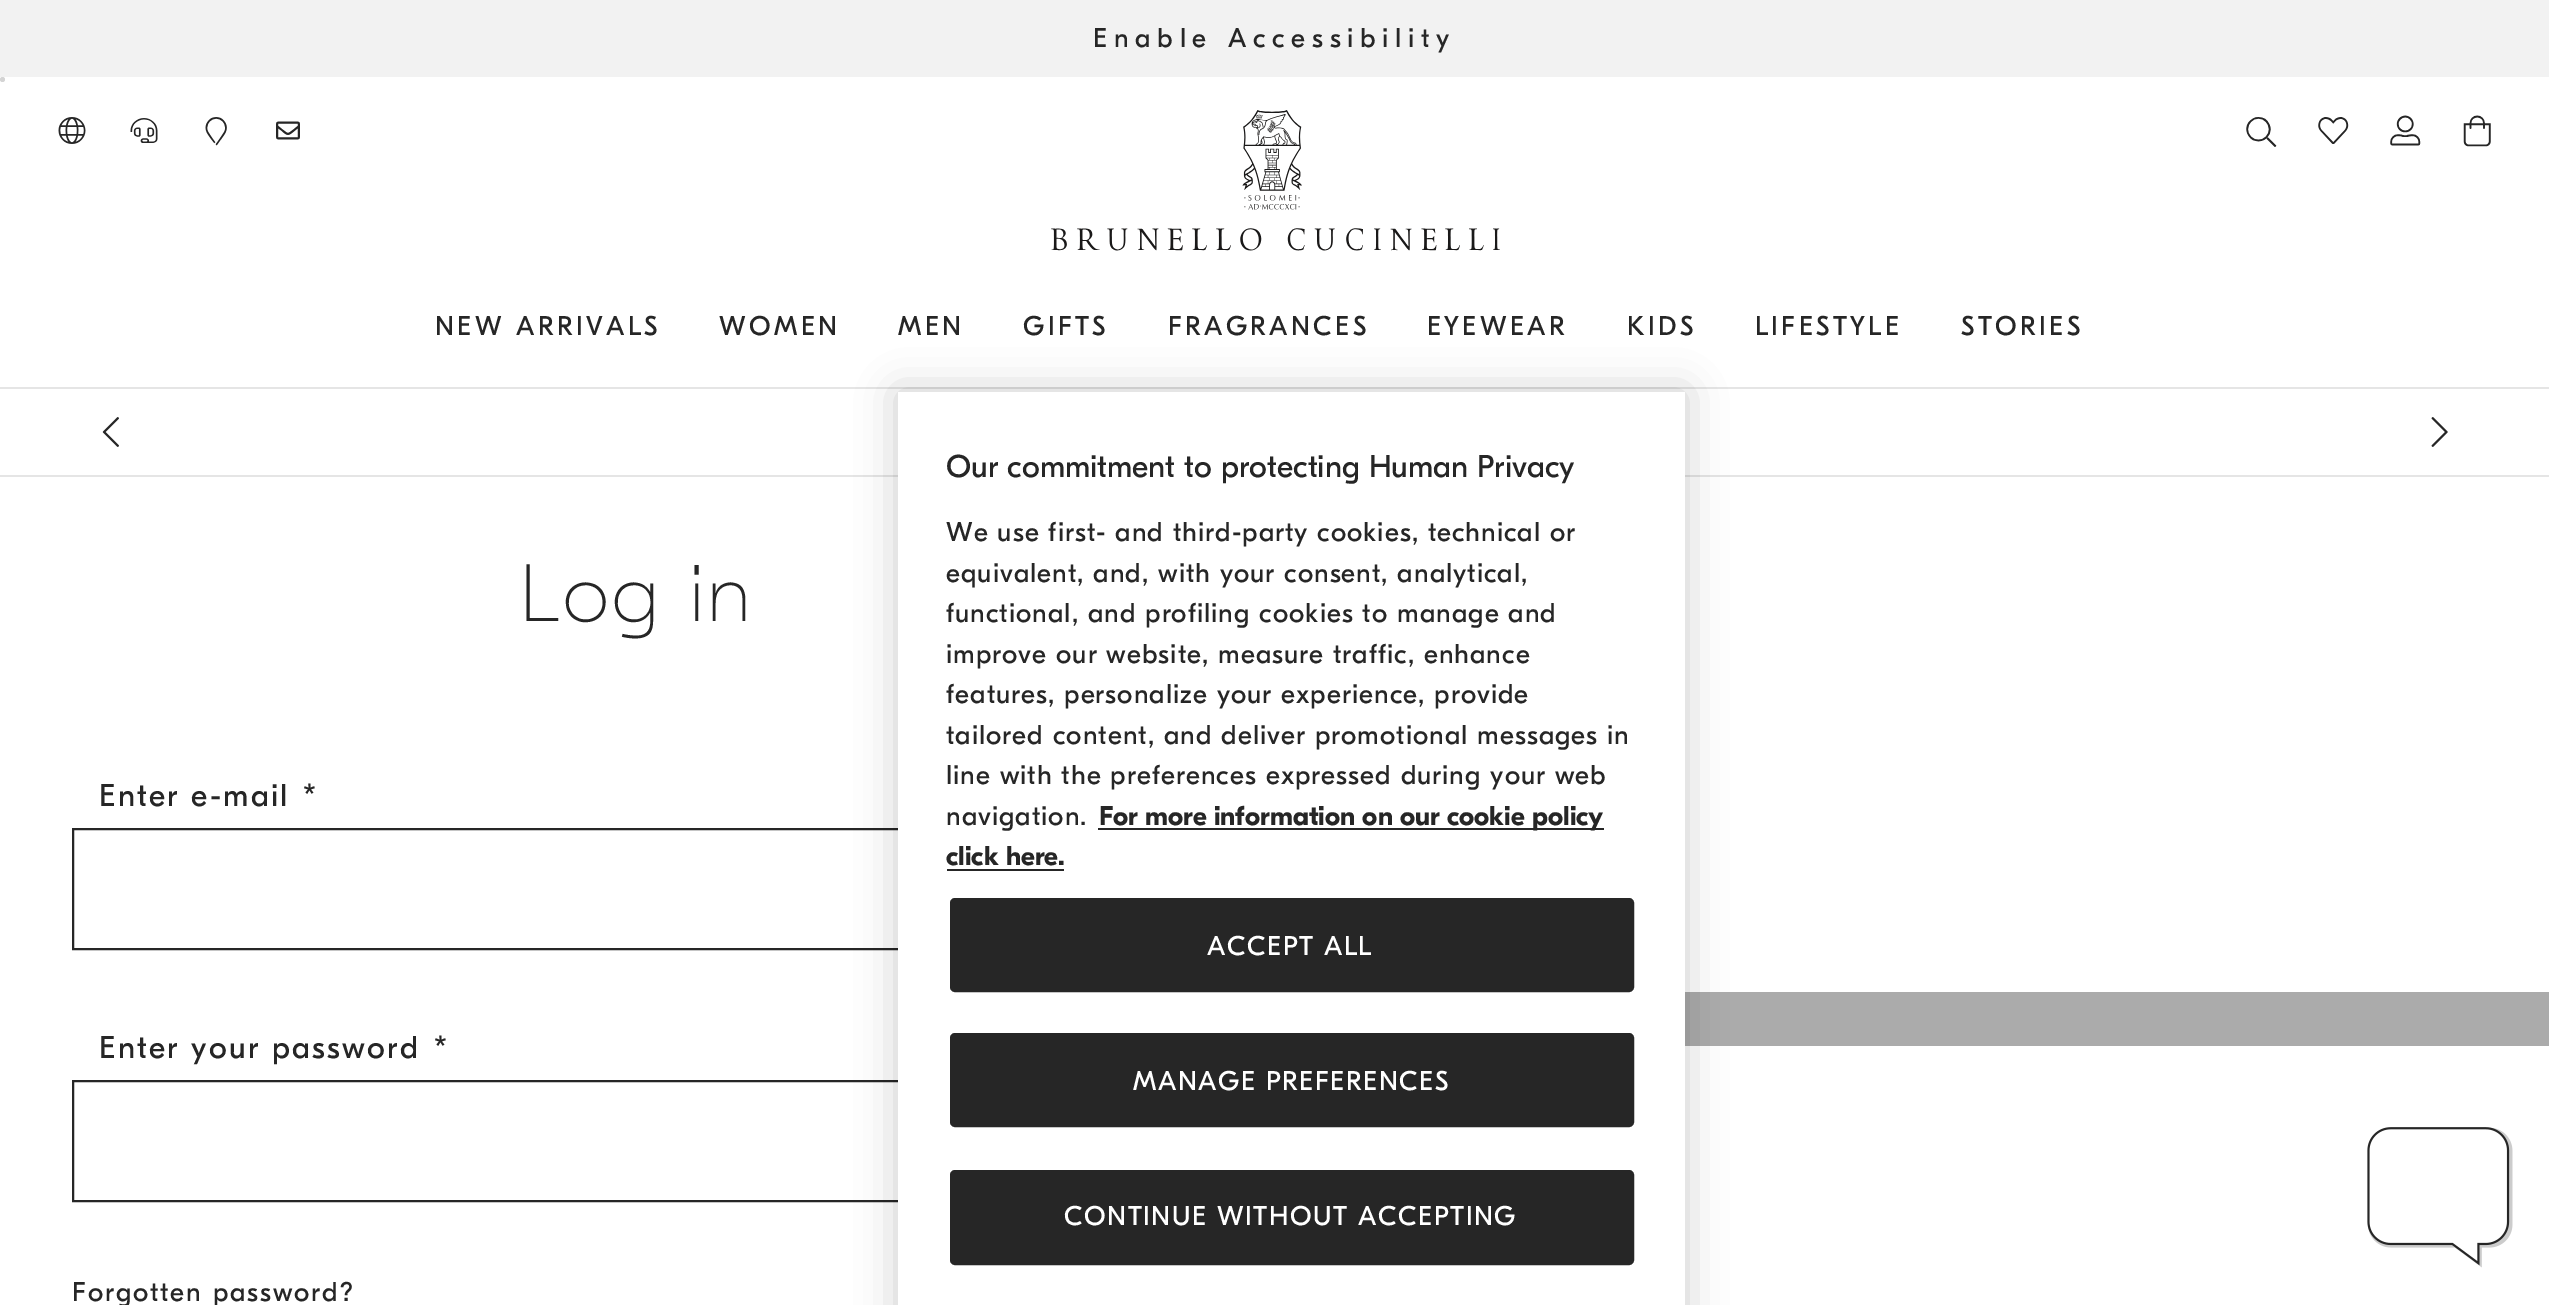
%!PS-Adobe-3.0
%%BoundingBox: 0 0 2549 1305
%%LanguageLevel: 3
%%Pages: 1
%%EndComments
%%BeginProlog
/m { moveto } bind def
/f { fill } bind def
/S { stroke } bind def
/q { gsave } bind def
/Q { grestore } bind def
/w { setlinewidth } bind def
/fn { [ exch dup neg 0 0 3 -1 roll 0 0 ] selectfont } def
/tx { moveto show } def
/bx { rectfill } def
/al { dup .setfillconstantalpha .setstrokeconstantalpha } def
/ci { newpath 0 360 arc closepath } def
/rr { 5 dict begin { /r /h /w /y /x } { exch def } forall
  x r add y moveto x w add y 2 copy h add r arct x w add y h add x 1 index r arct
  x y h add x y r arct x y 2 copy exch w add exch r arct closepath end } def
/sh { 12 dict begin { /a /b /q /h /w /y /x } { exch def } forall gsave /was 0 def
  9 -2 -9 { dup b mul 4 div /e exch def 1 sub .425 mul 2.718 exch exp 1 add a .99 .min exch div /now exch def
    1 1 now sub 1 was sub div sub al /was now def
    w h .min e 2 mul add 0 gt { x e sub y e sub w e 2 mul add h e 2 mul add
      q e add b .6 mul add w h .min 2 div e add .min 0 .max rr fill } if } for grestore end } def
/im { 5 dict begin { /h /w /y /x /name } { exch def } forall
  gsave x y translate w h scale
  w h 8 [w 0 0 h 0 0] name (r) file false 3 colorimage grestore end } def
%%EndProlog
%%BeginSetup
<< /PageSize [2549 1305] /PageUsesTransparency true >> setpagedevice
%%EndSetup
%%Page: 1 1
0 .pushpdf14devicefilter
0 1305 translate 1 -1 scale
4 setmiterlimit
1 setgray
0 0 2549 1305 bx
0.949 setgray
0 0 2549 77 bx
/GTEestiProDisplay-Regular 27 fn
0.149 setgray
1093 47 m 6.75 0 (Enable Accessibility) ashow
0.898 setgray
0 475 2549 2 bx
0.831 setgray
2.5 79.5 2.5 ci f
(image0.raw) 2463 115 28 32 im
(image1.raw) 2246 117 31 30 im
(image2.raw) 2318 117 31 27 im
(image3.raw) 2390 115 31 31 im
(image4.raw) 58 117 28 27 im
(image5.raw) 130 118 28 25 im
(image6.raw) 205 117 22 29 im
(image7.raw) 276 121 24 19 im
(image8.raw) 1051 110 449 141 im
0.149 setgray
435 335 m 3.4 0 (NEW ARRIVALS) ashow
719 335 m 3.4 0 (WOMEN) ashow
898 335 m 3.4 0 (MEN) ashow
1023 335 m 3.4 0 (GIFTS) ashow
1168 335 m 3.4 0 (FRAGRANCES) ashow
1427 335 m 3.4 0 (EYEWEAR) ashow
1627 335 m 3.4 0 (KIDS) ashow
1755 335 m 3.4 0 (LIFESTYLE) ashow
1961 335 m 3.4 0 (STORIES) ashow
0.898 setgray
0 387 2549 2 bx
(image9.raw) 102 417 17 30 im
(image10.raw) 2431 417 17 30 im
/GTEestiProDisplay-ExtraLight 81 fn
0.149 setgray
520 621 m 3.4 0 (Log in) ashow
/GTEestiProDisplay-Regular 31.5 fn
99 806 m 2.25 0 (Enter e-mail) ashow
303 806 m 2.25 0 (*) ashow
2 w
73 829 1130 120 rectstroke
99 1058 m 2.25 0 (Enter your password) ashow
434 1058 m 2.25 0 (*) ashow
73 1081 1130 120 rectstroke
/GTEestiProDisplay-Regular 27 fn
72 1301 m 1.9 0 (Forgotten password?) ashow
0.671 setgray
1685 992 864 54 bx
0 setgray
898 392 787 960 0 20 0.2 sh
1 setgray
898 392 787 913 bx
/GTEestiProDisplay-Regular 31.5 fn
0.149 setgray
(Our commitment to protecting Human Privacy) 946 477 tx
/GTEestiProDisplay-Regular 27 fn
946 541 m 1.03 0 (We use first- and third-party cookies, technical or) ashow
946 582 m 1.03 0 (equivalent, and, with your consent, analytical,) ashow
946 622 m 1.03 0 (functional, and profiling cookies to manage and) ashow
946 663 m 1.03 0 (improve our website, measure traffic, enhance) ashow
946 703 m 1.03 0 (features, personalize your experience, provide) ashow
946 744 m 1.03 0 (tailored content, and deliver promotional messages in) ashow
946 784 m 1.03 0 (line with the preferences expressed during your web) ashow
946 825 m 1.03 0 (navigation.) ashow
1098 828 506 2 bx
/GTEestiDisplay-Bold 27 fn
(For more information on our cookie policy) 1099 825 tx
(click here.) 946 865 tx
947 869 117 2 bx
951 899 682 92 4 rr q f Q
S
/GTEestiProDisplay-Regular 27 fn
1 setgray
1207 955 m 1.6 0 (ACCEPT ALL) ashow
0.149 setgray
951 1171 682 93 4 rr q f Q
S
1 setgray
1064 1225 m 1.6 0 (CONTINUE WITHOUT ACCEPTING) ashow
0.149 setgray
951 1034 682 92 4 rr q f Q
S
1 setgray
1133 1090 m 1.6 0 (MANAGE PREFERENCES) ashow
(image11.raw) 2367 1127 146 141 im
.poppdf14devicefilter showpage
%%EOF
